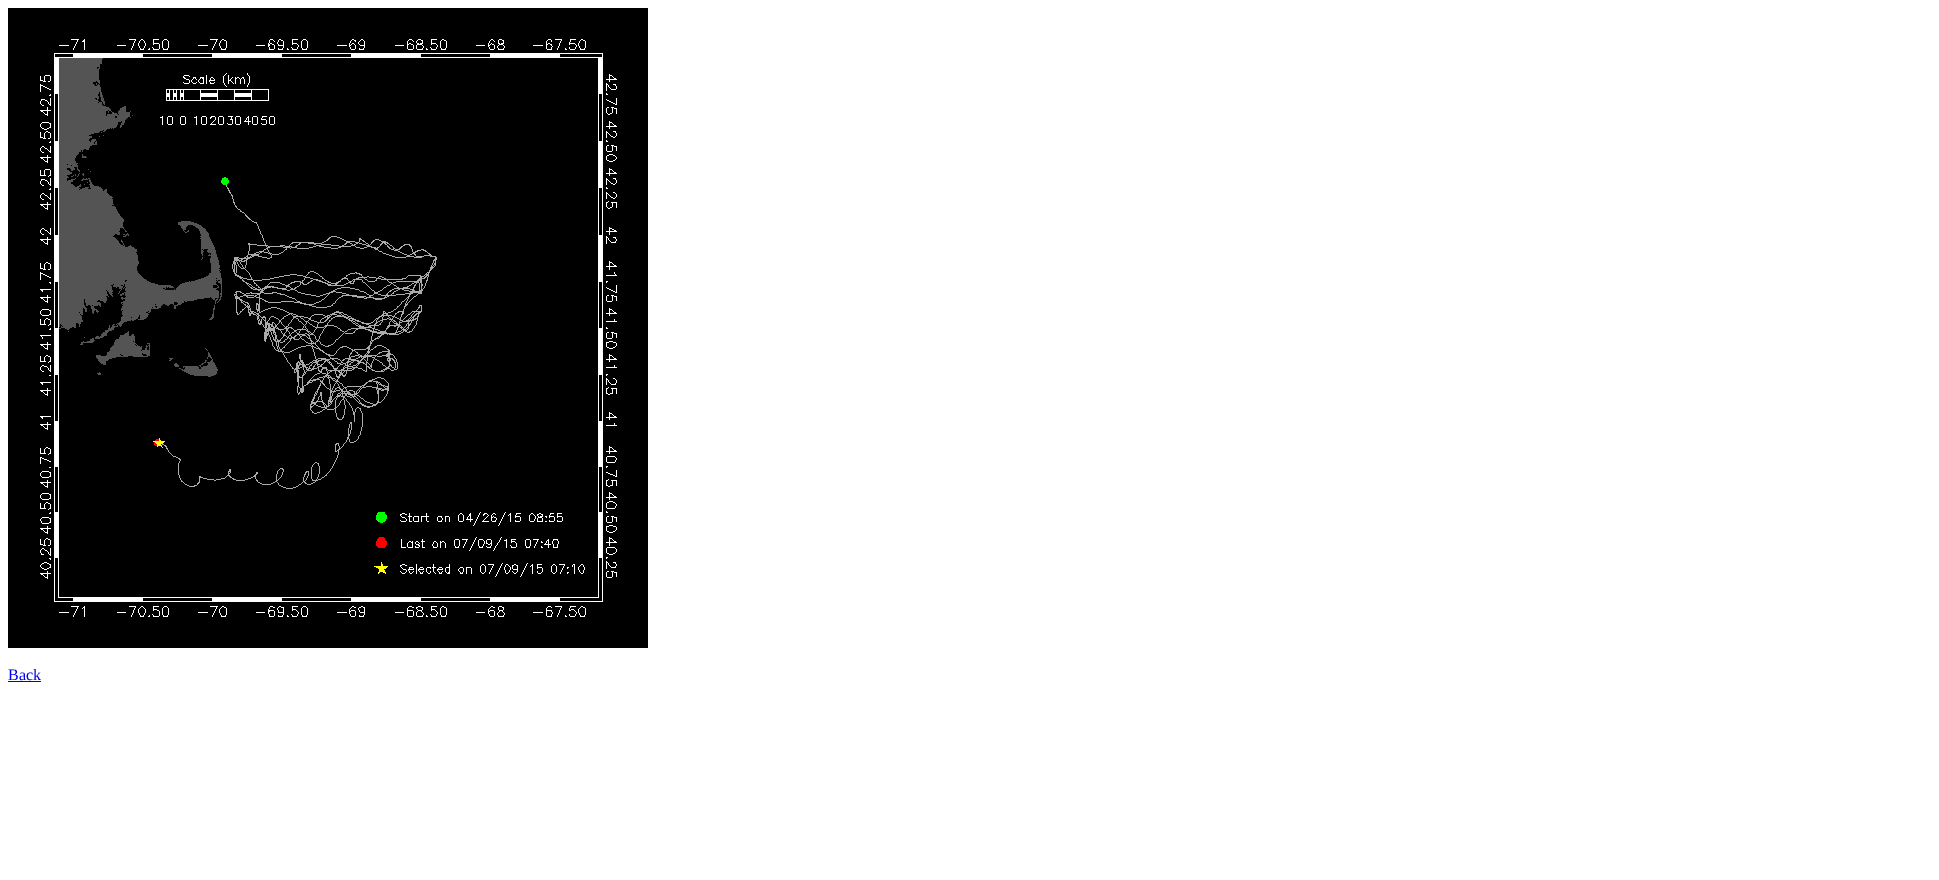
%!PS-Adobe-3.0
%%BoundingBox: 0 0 1939 880
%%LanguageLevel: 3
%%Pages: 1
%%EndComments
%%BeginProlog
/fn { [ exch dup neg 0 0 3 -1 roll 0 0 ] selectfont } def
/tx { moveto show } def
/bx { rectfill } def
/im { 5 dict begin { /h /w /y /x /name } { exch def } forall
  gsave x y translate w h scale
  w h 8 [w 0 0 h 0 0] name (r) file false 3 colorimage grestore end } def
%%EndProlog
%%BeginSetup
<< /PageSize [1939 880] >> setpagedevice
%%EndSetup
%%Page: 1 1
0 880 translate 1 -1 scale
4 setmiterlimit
1 setgray
0 0 1939 880 bx
(image0.raw) 8 8 640 640 im
/LiberationSerif-Regular 16 fn
0 0 0.933 setrgbcolor
(Back) 8 680 tx
8 681 33 1 bx
showpage
%%EOF
